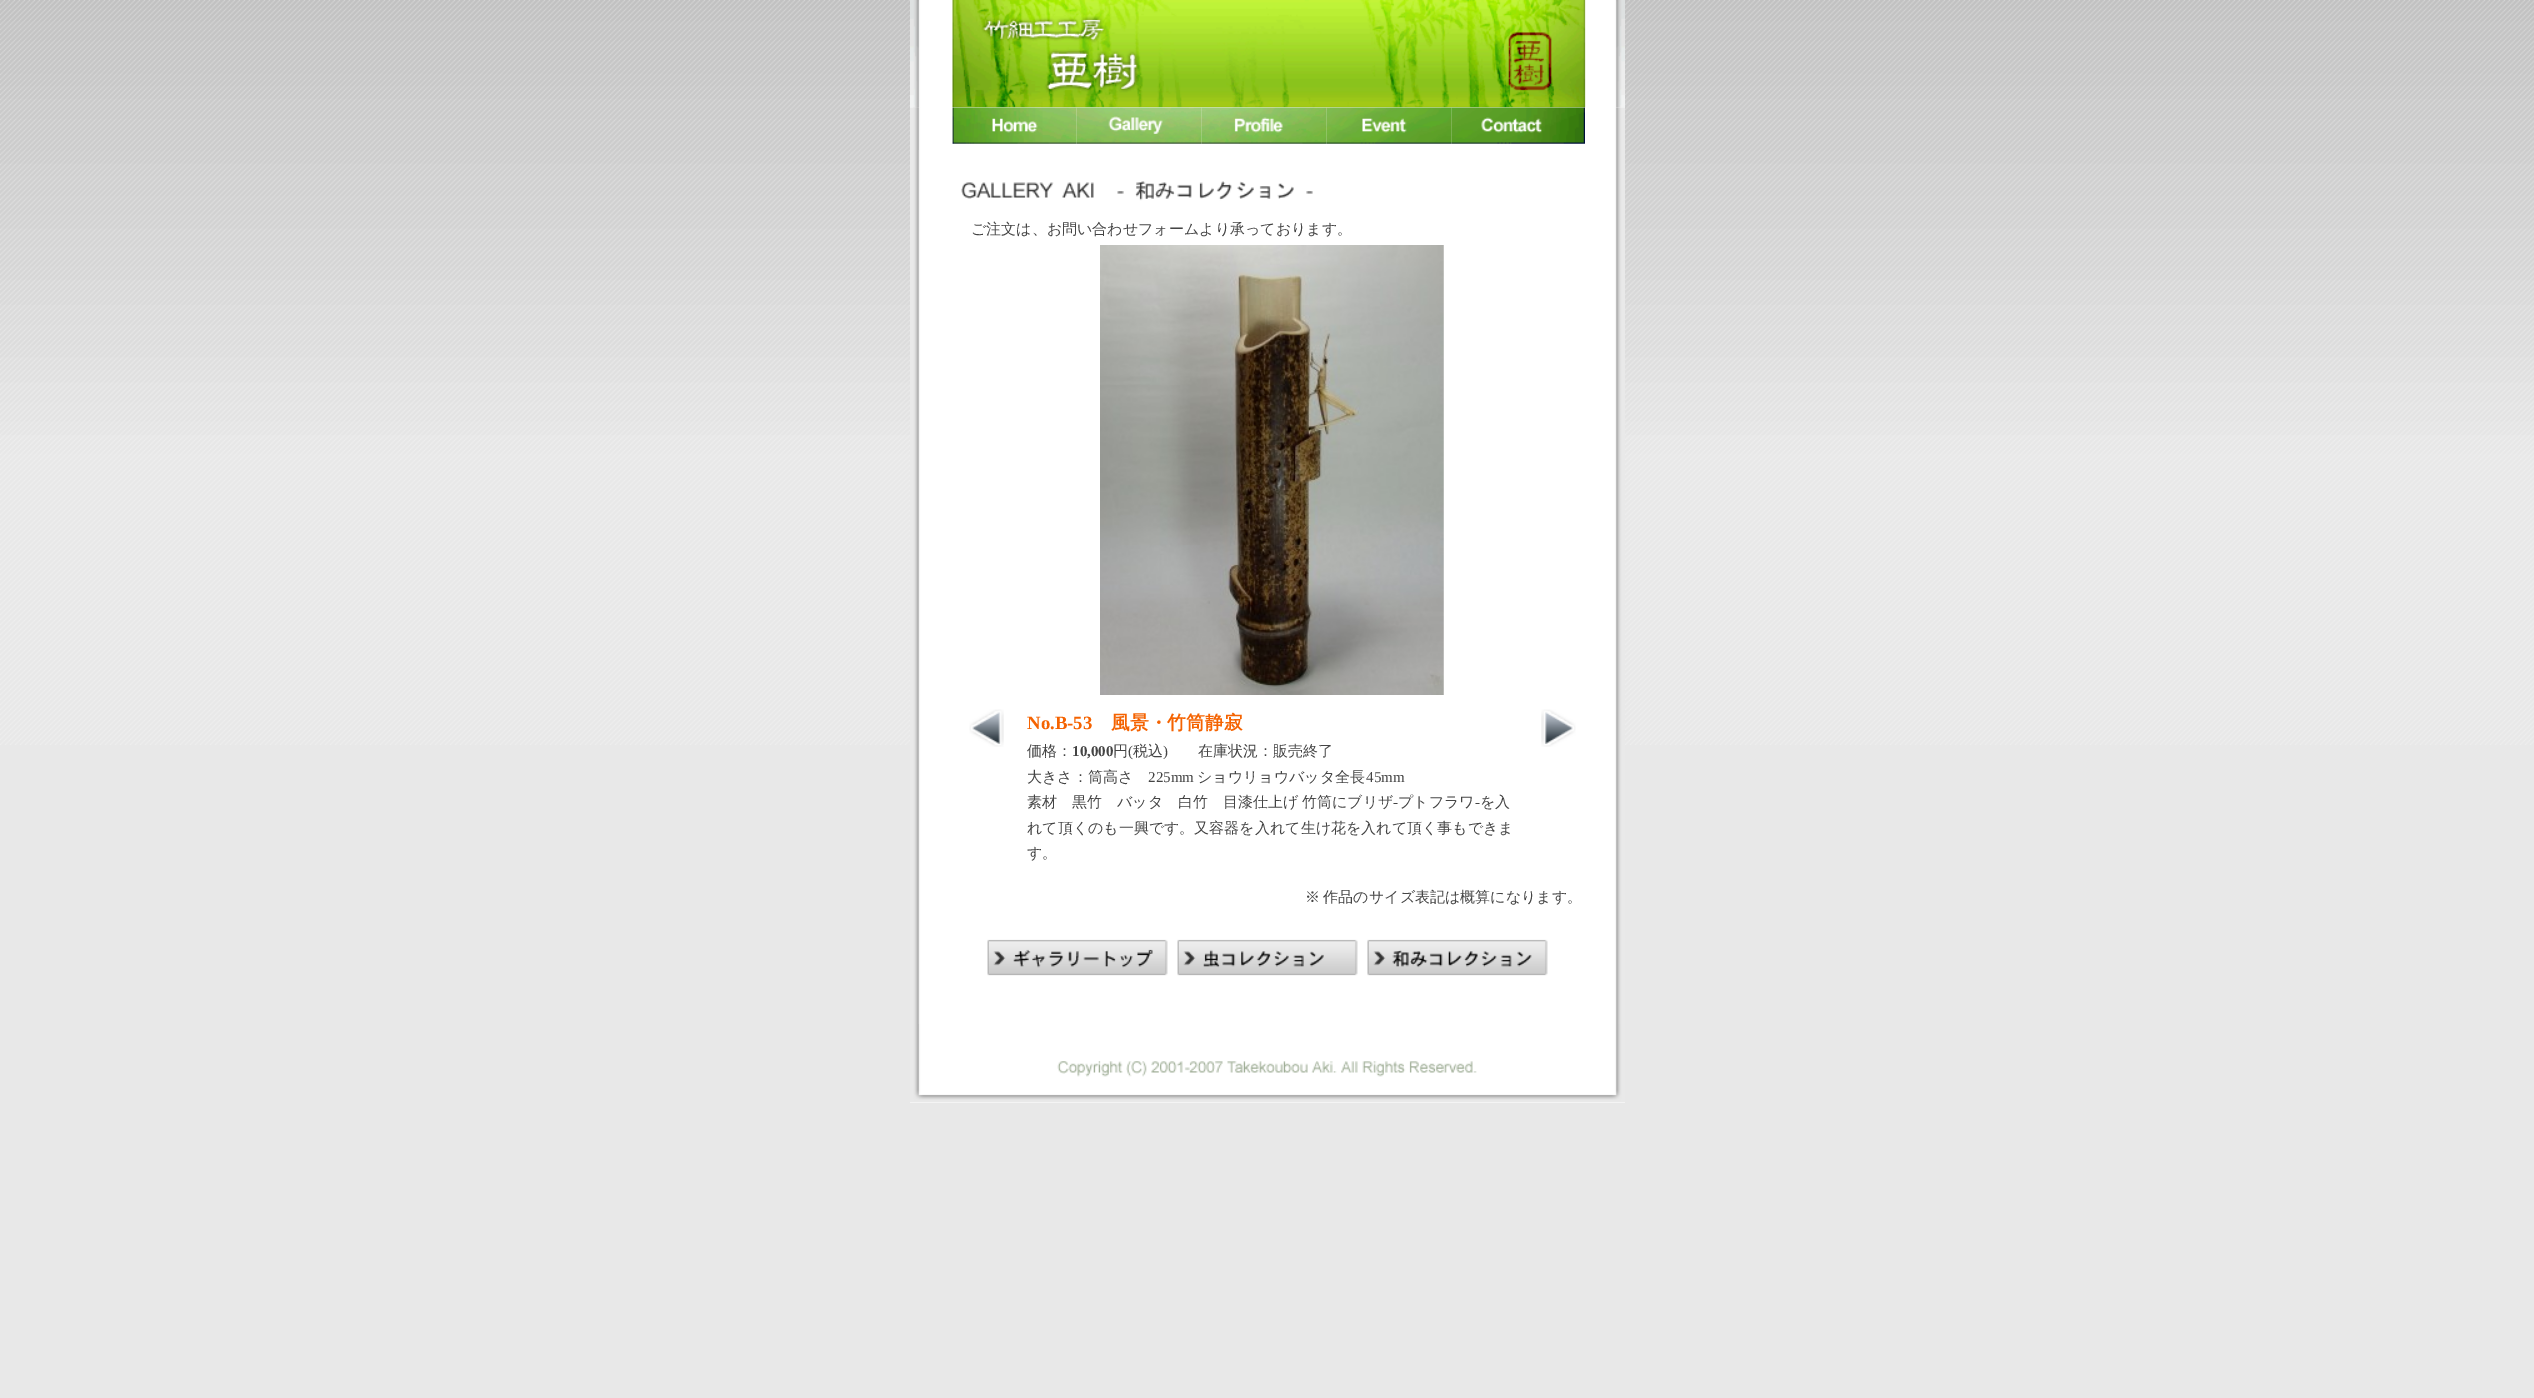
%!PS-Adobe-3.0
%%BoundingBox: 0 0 2534 1398
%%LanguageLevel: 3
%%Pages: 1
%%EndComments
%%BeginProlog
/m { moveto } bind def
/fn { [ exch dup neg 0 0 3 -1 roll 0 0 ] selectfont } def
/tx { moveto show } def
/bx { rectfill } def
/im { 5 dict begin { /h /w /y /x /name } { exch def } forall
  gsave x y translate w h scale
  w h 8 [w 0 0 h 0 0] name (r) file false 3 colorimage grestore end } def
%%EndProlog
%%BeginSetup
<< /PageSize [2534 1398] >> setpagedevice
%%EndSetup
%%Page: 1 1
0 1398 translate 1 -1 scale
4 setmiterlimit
0.91 setgray
0 0 2534 1398 bx
(image0.raw) 0 0 2534 745 im
(image1.raw) 910 107 715 1 im
(image2.raw) 910 0 715 108 im
(image9.raw) 910 107 715 917 im
(image3.raw) 913 107 6 43 im
(image4.raw) 952 107 125 37 im
(image5.raw) 1076 107 126 37 im
(image6.raw) 1201 107 126 37 im
(image7.raw) 1326 107 126 37 im
(image8.raw) 1451 107 134 37 im
(image10.raw) 961 181 352 20 im
/WenQuanYiZenHei-Medium 15 fn
0.267 setgray
(ご注文は、お問い合わせフォームより承っております。) 971 234 tx
(image11.raw) 1100 245 344 450 im
(image12.raw) 969 709 35 38 im
/LiberationSerif-Bold 18.75 fn
0.961 0.388 0.004 setrgbcolor
(No.B-53) 1027 729 tx
/WenQuanYiZenHei-Bold 18.75 fn
(風景・竹筒静寂) 1111 729 tx
/WenQuanYiZenHei-Medium 15 fn
0.267 setgray
(価格：) 1027 756 tx
/LiberationSerif-Bold 15 fn
(10,000) 1072 756 tx
/WenQuanYiZenHei-Medium 15 fn
(円) 1113 756 tx
/LiberationSerif-Regular 15 fn
(\() 1128 756 tx
/WenQuanYiZenHei-Medium 15 fn
(税込) 1133 756 tx
/LiberationSerif-Regular 15 fn
(\)) 1163 756 tx
/WenQuanYiZenHei-Medium 15 fn
(在庫状況：販売終了) 1198 756 tx
(大きさ：筒高さ) 1027 782 tx
/LiberationSerif-Regular 15 fn
(225mm) 1148 782 tx
/WenQuanYiZenHei-Medium 15 fn
(ショウリョウバッタ全長) 1197 782 tx
/LiberationSerif-Regular 15 fn
(45mm) 1366 782 tx
/WenQuanYiZenHei-Medium 15 fn
1027 807 m -1 0 32 (素材　黒竹　バッタ　白竹　目漆仕上げ 竹筒にブリザ) widthshow
/LiberationSerif-Regular 15 fn
(-) 1393 807 tx
/WenQuanYiZenHei-Medium 15 fn
(プトフラワ) 1398 807 tx
/LiberationSerif-Regular 15 fn
(-) 1475 807 tx
/WenQuanYiZenHei-Medium 15 fn
(を入) 1480 807 tx
(れて頂くのも一興です。又容器を入れて生け花を入れて頂く事もできま) 1027 833 tx
(す。) 1027 858 tx
(image13.raw) 1541 709 35 38 im
1305 902 m -1 0 32 (※ 作品のサイズ表記は概算になります。) widthshow
(image14.raw) 987 939 181 37 im
(image15.raw) 1177 939 181 37 im
(image16.raw) 1367 939 181 37 im
1 setgray
910 1102 715 1 bx
(image17.raw) 910 1024 715 79 im
showpage
%%EOF
